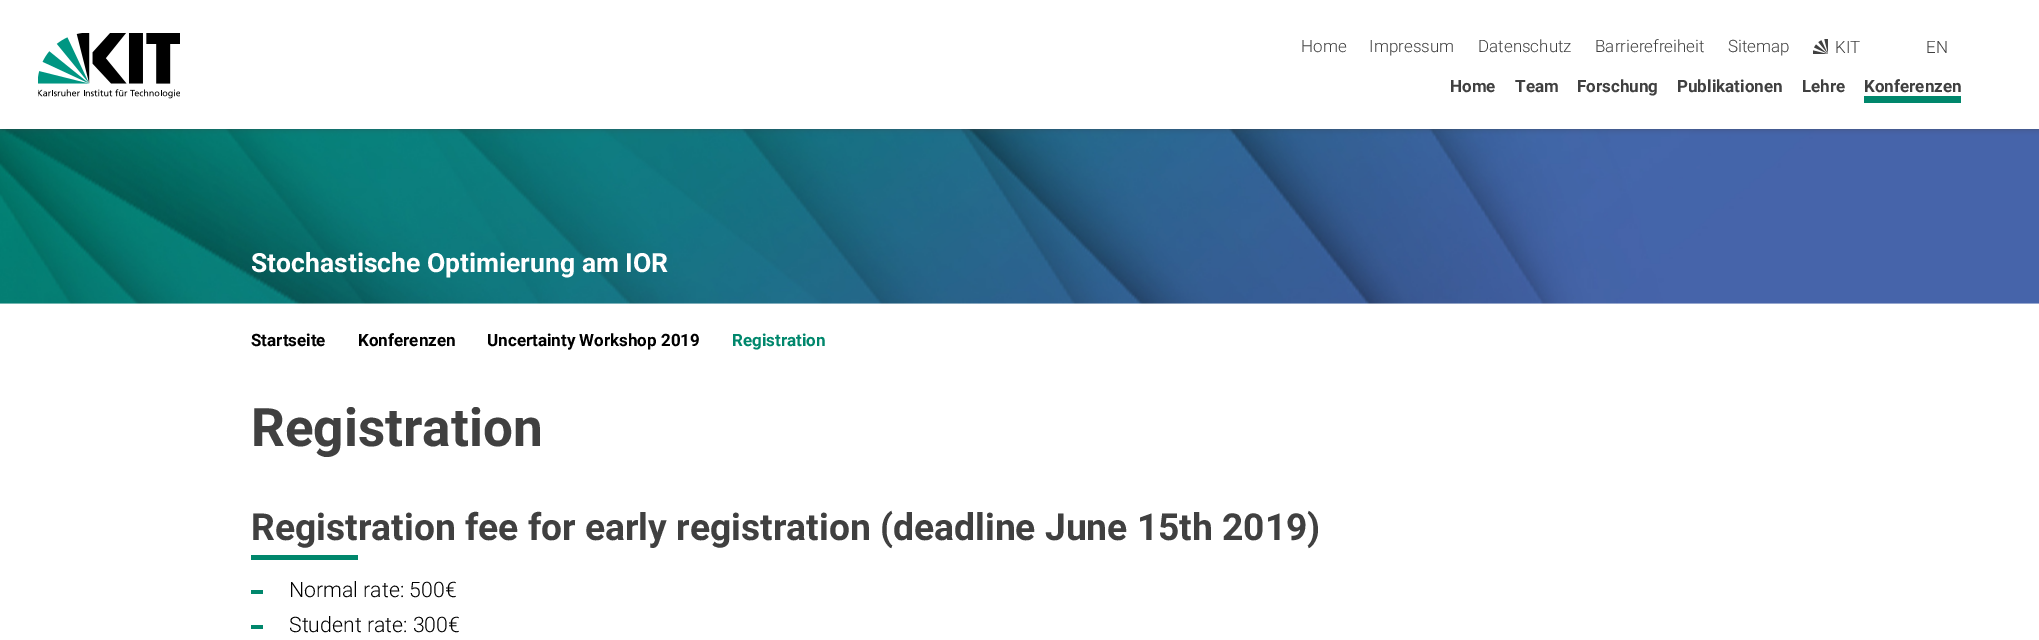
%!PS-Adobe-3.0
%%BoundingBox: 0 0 2039 640
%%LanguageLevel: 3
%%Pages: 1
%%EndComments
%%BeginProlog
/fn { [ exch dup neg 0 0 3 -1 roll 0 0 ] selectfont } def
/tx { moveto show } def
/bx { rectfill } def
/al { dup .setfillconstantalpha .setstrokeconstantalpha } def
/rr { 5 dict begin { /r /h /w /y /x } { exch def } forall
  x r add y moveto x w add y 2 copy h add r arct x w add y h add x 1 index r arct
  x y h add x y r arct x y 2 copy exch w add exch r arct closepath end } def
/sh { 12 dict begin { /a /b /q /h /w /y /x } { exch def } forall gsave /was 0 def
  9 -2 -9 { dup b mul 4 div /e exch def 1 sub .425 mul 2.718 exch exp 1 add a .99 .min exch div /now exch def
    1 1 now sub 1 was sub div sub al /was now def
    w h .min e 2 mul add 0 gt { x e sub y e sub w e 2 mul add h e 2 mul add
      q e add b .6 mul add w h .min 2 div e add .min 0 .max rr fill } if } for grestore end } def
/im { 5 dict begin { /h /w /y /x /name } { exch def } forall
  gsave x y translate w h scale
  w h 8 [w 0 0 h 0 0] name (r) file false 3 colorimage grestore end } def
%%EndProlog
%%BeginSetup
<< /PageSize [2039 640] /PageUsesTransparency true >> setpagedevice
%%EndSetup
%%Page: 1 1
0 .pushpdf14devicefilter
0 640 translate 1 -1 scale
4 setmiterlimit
1 setgray
0 0 2039 640 bx
(image2.raw) 0 129 2039 175 im
0.251 setgray
0 0 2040 129 0 3 0.5 sh
1 setgray
0 0 2039 129 bx
(image0.raw) 38 33 142 66 im
/Roboto-Light 17 fn
0.251 setgray
(Home) 1301 52 tx
(Impressum) 1369 52 tx
(Datenschutz) 1478 52 tx
(Barrierefreiheit) 1595 52 tx
(Sitemap) 1728 52 tx
(image1.raw) 1813 39 15 15 im
(KIT) 1835 53 tx
(EN) 1926 53 tx
/Roboto-Bold 17 fn
(Home) 1450 92 tx
(Team) 1515 92 tx
(Forschung) 1577 92 tx
(Publikationen) 1677 92 tx
(Lehre) 1802 92 tx
(Konferenzen) 1864 92 tx
0 0.529 0.424 setrgbcolor
1864 96 97 7 bx
/Roboto-Bold 26.5 fn
1 setgray
(Stochastische Optimierung am IOR) 251 272 tx
/Roboto-Bold 17 fn
0 setgray
(Startseite) 251 346 tx
(Konferenzen) 358 346 tx
(Uncertainty Workshop 2019) 487 346 tx
0 0.529 0.424 setrgbcolor
(Registration) 732 346 tx
/Roboto-Bold 53 fn
0.251 setgray
(Registration) 251 446 tx
/Roboto-Bold 37.2 fn
(Registration fee for early registration \(deadline June 15th 2019\)) 251 540 tx
0 0.529 0.424 setrgbcolor
251 555 107 5 bx
251 590 12 4 bx
/Roboto-Light 21.25 fn
0 setgray
(Normal rate: 500€) 289 597 tx
0 0.529 0.424 setrgbcolor
251 625 12 4 bx
0 setgray
(Student rate: 300€) 289 632 tx
.poppdf14devicefilter showpage
%%EOF
